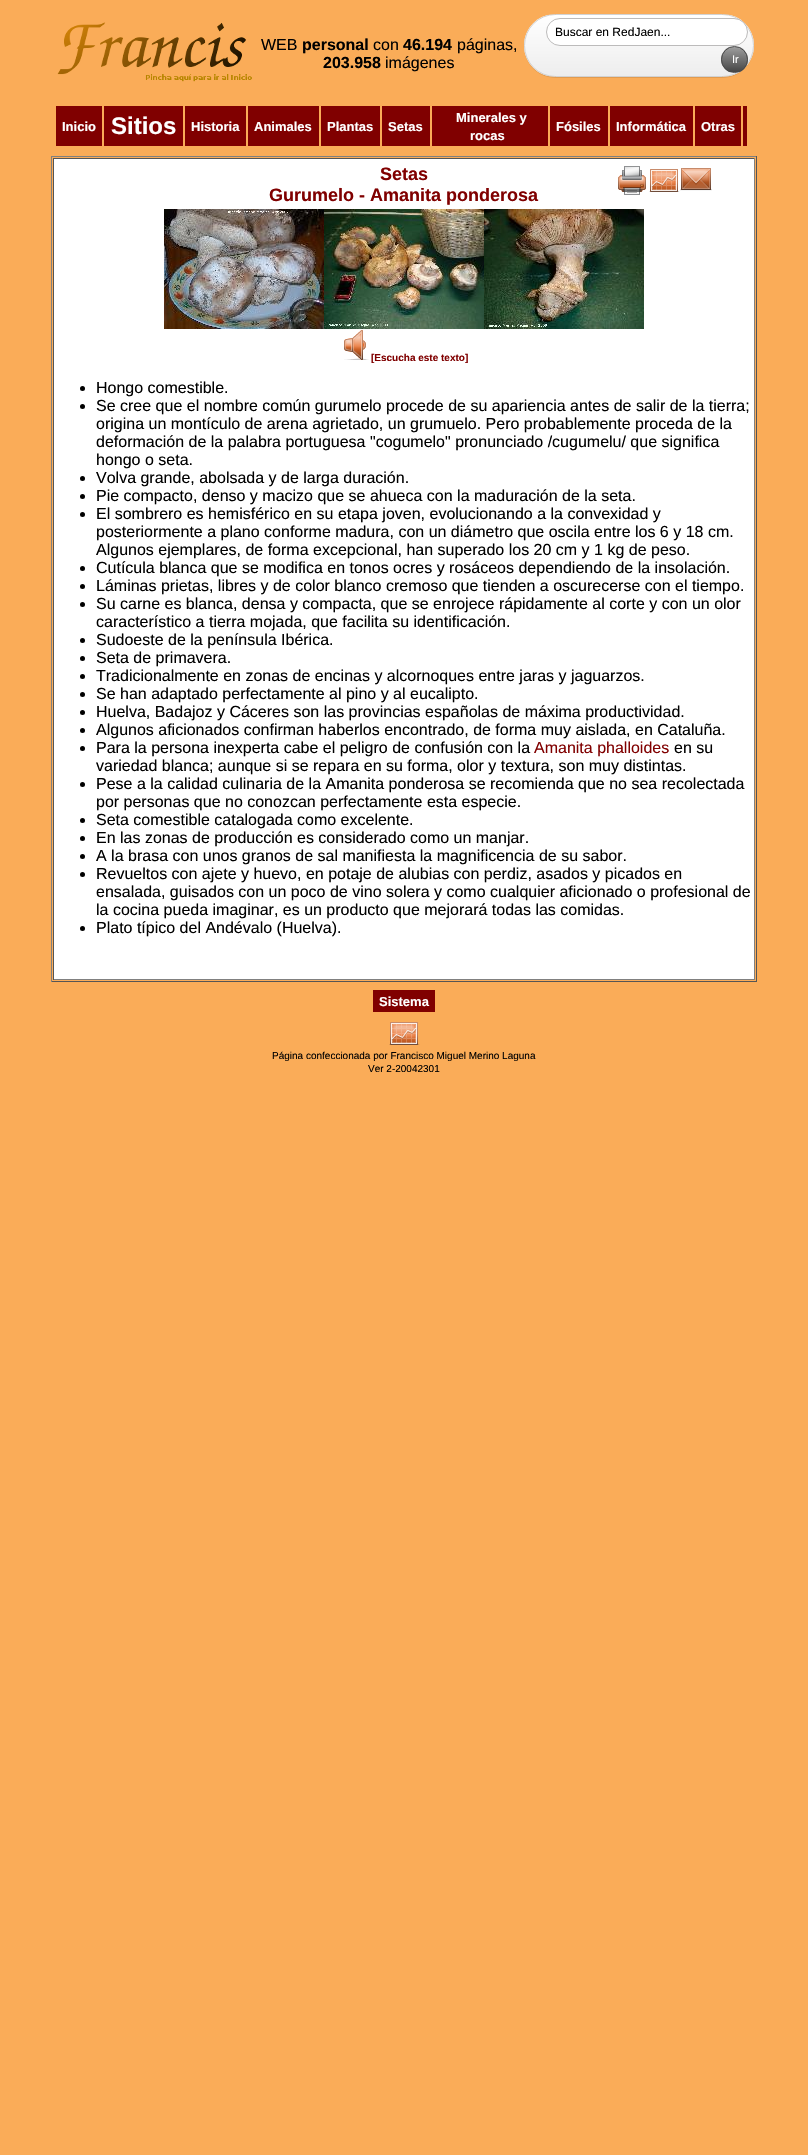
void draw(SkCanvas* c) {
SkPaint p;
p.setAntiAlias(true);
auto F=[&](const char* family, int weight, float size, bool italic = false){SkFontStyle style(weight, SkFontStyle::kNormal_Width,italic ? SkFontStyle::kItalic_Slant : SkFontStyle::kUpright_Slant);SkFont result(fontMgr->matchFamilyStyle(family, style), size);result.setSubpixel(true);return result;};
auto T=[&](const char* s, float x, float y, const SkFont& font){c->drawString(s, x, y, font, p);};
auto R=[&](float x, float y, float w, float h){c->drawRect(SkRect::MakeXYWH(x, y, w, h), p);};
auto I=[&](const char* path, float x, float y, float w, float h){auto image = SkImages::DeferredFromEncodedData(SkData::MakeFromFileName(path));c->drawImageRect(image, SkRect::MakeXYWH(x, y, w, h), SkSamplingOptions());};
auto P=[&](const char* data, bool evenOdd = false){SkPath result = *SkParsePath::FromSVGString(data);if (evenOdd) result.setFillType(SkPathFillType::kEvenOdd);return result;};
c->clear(0xfffaac58);
I("1.png",57,22,195,60);
auto f1 = F("Liberation Sans",400,16);
p.setColor(0xff000000);
T("WEB",261,50,f1);
auto f2 = F("Liberation Sans",700,16);
T("personal",302,50,f2);
T("con",373,50,f1);
T("46.194",403,50,f2);
T("páginas,",457,50,f1);
T("203.958",323,68,f2);
T("imágenes",385,68,f1);
p.setColor(0xffe19b4f);
c->drawPath(P("M524 46c0 18 14 32 32 32h166c18 0 32-14 32-32c0 17-14 31-32 31h-166c-18 0-32-14-32-31z"),p);
c->save();
c->clipPath(P("M555.5 14h167c17.5 0 31.5 14 31.5 31.5c0 17.5-14 31.5-31.5 31.5h-167c-17.5 0-31.5-14-31.5-31.5c0-17.5 14-31.5 31.5-31.5z"),true);
{
const SkColor colors[] = {0xffffffff,0xffededed};
const float stops[] = {0,1};
const SkPoint ends[] = {{525,15}, {525,76}};
p.setShader(SkGradientShader::MakeLinear(ends, colors, stops, 2, SkTileMode::kClamp));
p.setAlpha(255);
}
R(524,15,230,61);
c->restore();
p.setStroke(true);
p.setStrokeWidth(1);
p.setShader(nullptr);
p.setColor(0xffd2d2d2);
c->drawRoundRect(SkRect::MakeXYWH(524.5,14.5,229,62),31,31,p);
p.setStroke(false);
p.setColor(0xffffffff);
c->drawRoundRect(SkRect::MakeXYWH(546.5,18.5,201,27),13.5,13.5,p);
p.setStroke(true);
p.setColor(0xffbcbbbb);
c->drawRoundRect(SkRect::MakeXYWH(546.5,18.5,201,27),13.5,13.5,p);
auto f3 = F("Liberation Sans",400,12);
p.setStroke(false);
p.setColor(0xff000000);
T("Buscar en RedJaen...",555,36,f3);
c->save();
c->clipPath(P("M734.5 46c7.5 0 13.5 6 13.5 13.5c0 7.5-6 13.5-13.5 13.5c-7.5 0-13.5-6-13.5-13.5c0-7.5 6-13.5 13.5-13.5z"),true);
{
const SkColor colors[] = {0xff9e9e9e,0xff454545};
const float stops[] = {0,1};
const SkPoint ends[] = {{722,47}, {722,72}};
p.setShader(SkGradientShader::MakeLinear(ends, colors, stops, 2, SkTileMode::kClamp));
p.setAlpha(255);
}
R(721,47,27,25);
c->restore();
p.setStroke(true);
p.setShader(nullptr);
p.setColor(0xff494949);
c->drawCircle(734.5,59.5,13,p);
auto f4 = F("Liberation Sans",400,11);
p.setStroke(false);
p.setColor(0xffffffff);
T("Ir",732,63,f4);
p.setColor(0xff800000);
R(56,106,46,40);
auto f5 = F("Liberation Sans",700,13);
p.setColor(0xffffffff);
T("Inicio",62,131,f5);
p.setColor(0xff800000);
R(104,106,79,40);
auto f6 = F("Liberation Sans",700,24);
p.setColor(0xffffffff);
T("Sitios",111,134,f6);
p.setColor(0xff800000);
R(185,106,61,40);
p.setColor(0xffffffff);
T("Historia",191,131,f5);
p.setColor(0xff800000);
R(248,106,71,40);
p.setColor(0xffffffff);
T("Animales",254,131,f5);
p.setColor(0xff800000);
R(321,106,59,40);
p.setColor(0xffffffff);
T("Plantas",327,131,f5);
p.setColor(0xff800000);
R(382,106,48,40);
p.setColor(0xffffffff);
T("Setas",388,131,f5);
p.setColor(0xff800000);
R(432,106,116,40);
p.setColor(0xffffffff);
T("Minerales y",456,122,f5);
T("rocas",470,140,f5);
p.setColor(0xff800000);
R(550,106,58,40);
p.setColor(0xffffffff);
T("Fósiles",556,131,f5);
p.setColor(0xff800000);
R(610,106,83,40);
p.setColor(0xffffffff);
T("Informática",616,131,f5);
p.setColor(0xff800000);
R(695,106,46,40);
p.setColor(0xffffffff);
T("Otras",701,131,f5);
p.setColor(0xff800000);
R(743,106,4,40);
p.setColor(0xff808080);
R(51,156,706,1);
p.setColor(0xff555555);
R(756,156,1,826);
R(51,981,706,1);
p.setColor(0xff808080);
R(51,156,1,826);
p.setColor(0xffffffff);
R(54,159,700,820);
p.setColor(0xff555555);
R(53,158,702,1);
p.setColor(0xff808080);
R(754,158,1,822);
R(53,979,702,1);
p.setColor(0xff555555);
R(53,158,1,822);
auto f7 = F("Liberation Sans",700,18);
p.setColor(0xff800000);
T("Setas",380,180,f7);
T("Gurumelo - Amanita ponderosa",269,201,f7);
I("2.png",618,166,28,29);
I("3.png",649,169,31,23);
I("4.png",680,168,32,23);
I("5.png",164,209,160,120);
I("6.png",324,209,160,120);
I("7.png",484,209,160,120);
I("8.png",344,330,25,30);
auto f8 = F("Liberation Sans",700,10);
T("[Escucha este texto]",371,361,f8);
p.setColor(0xff000000);
c->drawCircle(82.5,388.5,2.5,p);
T("Hongo comestible.",96,393,f1);
c->drawCircle(82.5,406.5,2.5,p);
T("Se cree que el nombre común gurumelo procede de su apariencia antes de salir de la tierra;",96,411,f1);
T("origina un montículo de arena agrietado, un grumuelo. Pero probablemente proceda de la",96,429,f1);
T("deformación de la palabra portuguesa \"cogumelo\" pronunciado /cugumelu/ que significa",96,447,f1);
T("hongo o seta.",96,465,f1);
c->drawCircle(82.5,478.5,2.5,p);
T("Volva grande, abolsada y de larga duración.",96,483,f1);
c->drawCircle(82.5,496.5,2.5,p);
T("Pie compacto, denso y macizo que se ahueca con la maduración de la seta.",96,501,f1);
c->drawCircle(82.5,514.5,2.5,p);
T("El sombrero es hemisférico en su etapa joven, evolucionando a la convexidad y",96,519,f1);
T("posteriormente a plano conforme madura, con un diámetro que oscila entre los 6 y 18 cm.",96,537,f1);
T("Algunos ejemplares, de forma excepcional, han superado los 20 cm y 1 kg de peso.",96,555,f1);
c->drawCircle(82.5,568.5,2.5,p);
T("Cutícula blanca que se modifica en tonos ocres y rosáceos dependiendo de la insolación.",96,573,f1);
c->drawCircle(82.5,586.5,2.5,p);
T("Láminas prietas, libres y de color blanco cremoso que tienden a oscurecerse con el tiempo.",96,591,f1);
c->drawCircle(82.5,604.5,2.5,p);
T("Su carne es blanca, densa y compacta, que se enrojece rápidamente al corte y con un olor",96,609,f1);
T("característico a tierra mojada, que facilita su identificación.",96,627,f1);
c->drawCircle(82.5,640.5,2.5,p);
T("Sudoeste de la península Ibérica.",96,645,f1);
c->drawCircle(82.5,658.5,2.5,p);
T("Seta de primavera.",96,663,f1);
c->drawCircle(82.5,676.5,2.5,p);
T("Tradicionalmente en zonas de encinas y alcornoques entre jaras y jaguarzos.",96,681,f1);
c->drawCircle(82.5,694.5,2.5,p);
T("Se han adaptado perfectamente al pino y al eucalipto.",96,699,f1);
c->drawCircle(82.5,712.5,2.5,p);
T("Huelva, Badajoz y Cáceres son las provincias españolas de máxima productividad.",96,717,f1);
c->drawCircle(82.5,730.5,2.5,p);
T("Algunos aficionados confirman haberlos encontrado, de forma muy aislada, en Cataluña.",96,735,f1);
c->drawCircle(82.5,748.5,2.5,p);
T("Para la persona inexperta cabe el peligro de confusión con la",96,753,f1);
p.setColor(0xff800000);
T("Amanita phalloides",534,753,f1);
p.setColor(0xff000000);
T("en su",674,753,f1);
T("variedad blanca; aunque si se repara en su forma, olor y textura, son muy distintas.",96,771,f1);
c->drawCircle(82.5,784.5,2.5,p);
T("Pese a la calidad culinaria de la Amanita ponderosa se recomienda que no sea recolectada",96,789,f1);
T("por personas que no conozcan perfectamente esta especie.",96,807,f1);
c->drawCircle(82.5,820.5,2.5,p);
T("Seta comestible catalogada como excelente.",96,825,f1);
c->drawCircle(82.5,838.5,2.5,p);
T("En las zonas de producción es considerado como un manjar.",96,843,f1);
c->drawCircle(82.5,856.5,2.5,p);
T("A la brasa con unos granos de sal manifiesta la magnificencia de su sabor.",96,861,f1);
c->drawCircle(82.5,874.5,2.5,p);
T("Revueltos con ajete y huevo, en potaje de alubias con perdiz, asados y picados en",96,879,f1);
T("ensalada, guisados con un poco de vino solera y como cualquier aficionado o profesional de",96,897,f1);
T("la cocina pueda imaginar, es un producto que mejorará todas las comidas.",96,915,f1);
c->drawCircle(82.5,928.5,2.5,p);
T("Plato típico del Andévalo (Huelva).",96,933,f1);
p.setColor(0xff800000);
R(373,990,62,22);
p.setColor(0xffffffff);
T("Sistema",379,1006,f5);
I("9.png",389,1022,31,23);
auto f9 = F("Liberation Sans",400,10);
p.setColor(0xff000000);
T("Página confeccionada por Francisco Miguel Merino Laguna",272,1059,f9);
T("Ver 2-20042301",368,1072,f9);
}
